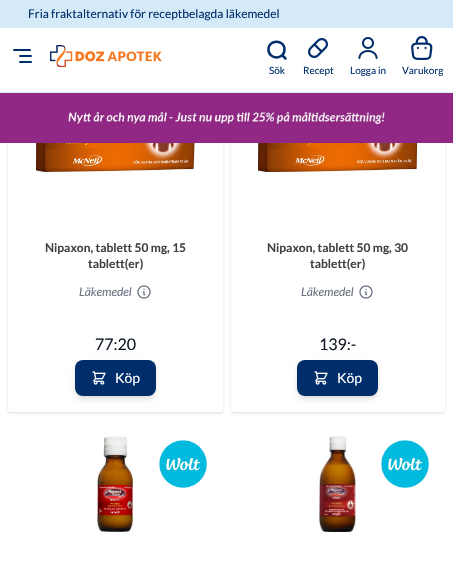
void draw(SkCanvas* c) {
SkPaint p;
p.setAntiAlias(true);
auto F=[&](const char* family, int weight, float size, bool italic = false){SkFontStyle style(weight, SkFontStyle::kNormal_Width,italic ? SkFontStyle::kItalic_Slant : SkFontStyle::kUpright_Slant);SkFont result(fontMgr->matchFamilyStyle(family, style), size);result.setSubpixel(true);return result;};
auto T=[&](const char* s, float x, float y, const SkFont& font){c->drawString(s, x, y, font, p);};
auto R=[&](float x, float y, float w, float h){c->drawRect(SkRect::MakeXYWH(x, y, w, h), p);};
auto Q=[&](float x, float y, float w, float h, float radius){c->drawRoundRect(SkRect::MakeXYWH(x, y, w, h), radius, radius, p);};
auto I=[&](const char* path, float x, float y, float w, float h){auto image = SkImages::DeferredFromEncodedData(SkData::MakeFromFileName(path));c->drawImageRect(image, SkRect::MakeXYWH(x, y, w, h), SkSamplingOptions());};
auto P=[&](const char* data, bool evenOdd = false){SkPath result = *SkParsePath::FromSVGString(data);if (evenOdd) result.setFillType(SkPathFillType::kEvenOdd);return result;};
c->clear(0xffffffff);
p.setColor(0x1a000000);
p.setMaskFilter(SkMaskFilter::MakeBlur(kNormal_SkBlurStyle, 1));
c->drawRoundRect(SkRect::MakeXYWH(9,62,213,350),1,1,p);
p.setMaskFilter(nullptr);
p.setMaskFilter(SkMaskFilter::MakeBlur(kNormal_SkBlurStyle, 1.5));
c->drawRoundRect(SkRect::MakeXYWH(8,61,215,352),2,2,p);
p.setMaskFilter(nullptr);
p.setColor(0xffffffff);
Q(8,60,215,352,2);
p.setColor(0x1a000000);
p.setMaskFilter(SkMaskFilter::MakeBlur(kNormal_SkBlurStyle, 1));
c->drawRoundRect(SkRect::MakeXYWH(232,62,212,350),1,1,p);
p.setMaskFilter(nullptr);
p.setMaskFilter(SkMaskFilter::MakeBlur(kNormal_SkBlurStyle, 1.5));
c->drawRoundRect(SkRect::MakeXYWH(231,61,214,352),2,2,p);
p.setMaskFilter(nullptr);
p.setColor(0xffffffff);
Q(231,60,214,352,2);
R(6,59,441,33);
p.setColor(0xffd4eaf8);
R(0,0,453,28);
auto f1 = F("Lato",400,12);
p.setColor(0xff002e6a);
T("Fria fraktalternativ för receptbelagda läkemedel",28,18,f1);
p.setColor(0xffd4eaf8);
R(0,92,453,1);
p.setColor(0xff002e6a);
Q(13,49,18,2,1);
Q(19,55,13,2,1);
Q(19,61,13,2,1);
I("1.png",50,45,112,22);
p.setStroke(true);
p.setStrokeWidth(2.5);
p.setStrokeCap(SkPaint::kRound_Cap);
p.setStrokeJoin(SkPaint::kRound_Join);
c->drawPath(P("M285.5 58.5l-2-2m1-7c0 10.5-16 10.5-16 0c0-10.5 16-10.5 16 0z"),p);
auto f2 = F("Lato",400,10);
p.setStroke(false);
T("Sök",269,74,f2);
I("2.png",308,38,20,20);
T("Recept",303,74,f2);
I("3.png",358,37,20,22);
T("Logga in",350,74,f2);
I("4.png",411,36,22,24);
T("Varukorg",402,74,f2);
p.setColor(0xff912885);
R(0,93,453,50);
I("5.png",68,111,317,15);
I("6.png",36,143,159,29);
auto f3 = F("Lato",700,12);
p.setColor(0xff404040);
T("Nipaxon, tablett 50 mg, 15",45,252,f3);
T("tablett(er)",88,268,f3);
auto f4 = F("Lato",400,12,true);
p.setColor(0xff6b7280);
T("Läkemedel",79,296,f4);
I("7.png",137,285,14,14);
auto f5 = F("Lato",400,16);
p.setColor(0xff111827);
T("77:20",95,350,f5);
p.setColor(0x1a000000);
p.setMaskFilter(SkMaskFilter::MakeBlur(kNormal_SkBlurStyle, 2));
c->drawRoundRect(SkRect::MakeXYWH(77,364,77,32),6,6,p);
p.setMaskFilter(nullptr);
p.setMaskFilter(SkMaskFilter::MakeBlur(kNormal_SkBlurStyle, 3));
c->drawRoundRect(SkRect::MakeXYWH(76,365,79,34),7,7,p);
p.setMaskFilter(nullptr);
p.setColor(0xff002e6a);
Q(75,360,81,36,8);
I("8.png",92,371,14,14);
auto f6 = F("Lato",400,14);
p.setColor(0xffffffff);
T("Köp",115,383,f6);
I("9.png",258,143,160,29);
p.setColor(0xff404040);
T("Nipaxon, tablett 50 mg, 30",267,252,f3);
T("tablett(er)",310,268,f3);
p.setColor(0xff6b7280);
T("Läkemedel",301,296,f4);
I("7.png",359,285,14,14);
p.setColor(0xff111827);
T("139:-",319,350,f5);
p.setColor(0x1a000000);
p.setMaskFilter(SkMaskFilter::MakeBlur(kNormal_SkBlurStyle, 2));
c->drawRoundRect(SkRect::MakeXYWH(299,364,77,32),6,6,p);
p.setMaskFilter(nullptr);
p.setMaskFilter(SkMaskFilter::MakeBlur(kNormal_SkBlurStyle, 3));
c->drawRoundRect(SkRect::MakeXYWH(298,365,79,34),7,7,p);
p.setMaskFilter(nullptr);
p.setColor(0xff002e6a);
Q(297,360,81,36,8);
I("8.png",314,371,14,14);
p.setColor(0xffffffff);
T("Köp",337,383,f6);
I("10.png",97,436,36,96);
I("11.png",159,440,48,48);
I("12.png",319,436,37,96);
I("13.png",381,440,48,48);
}
